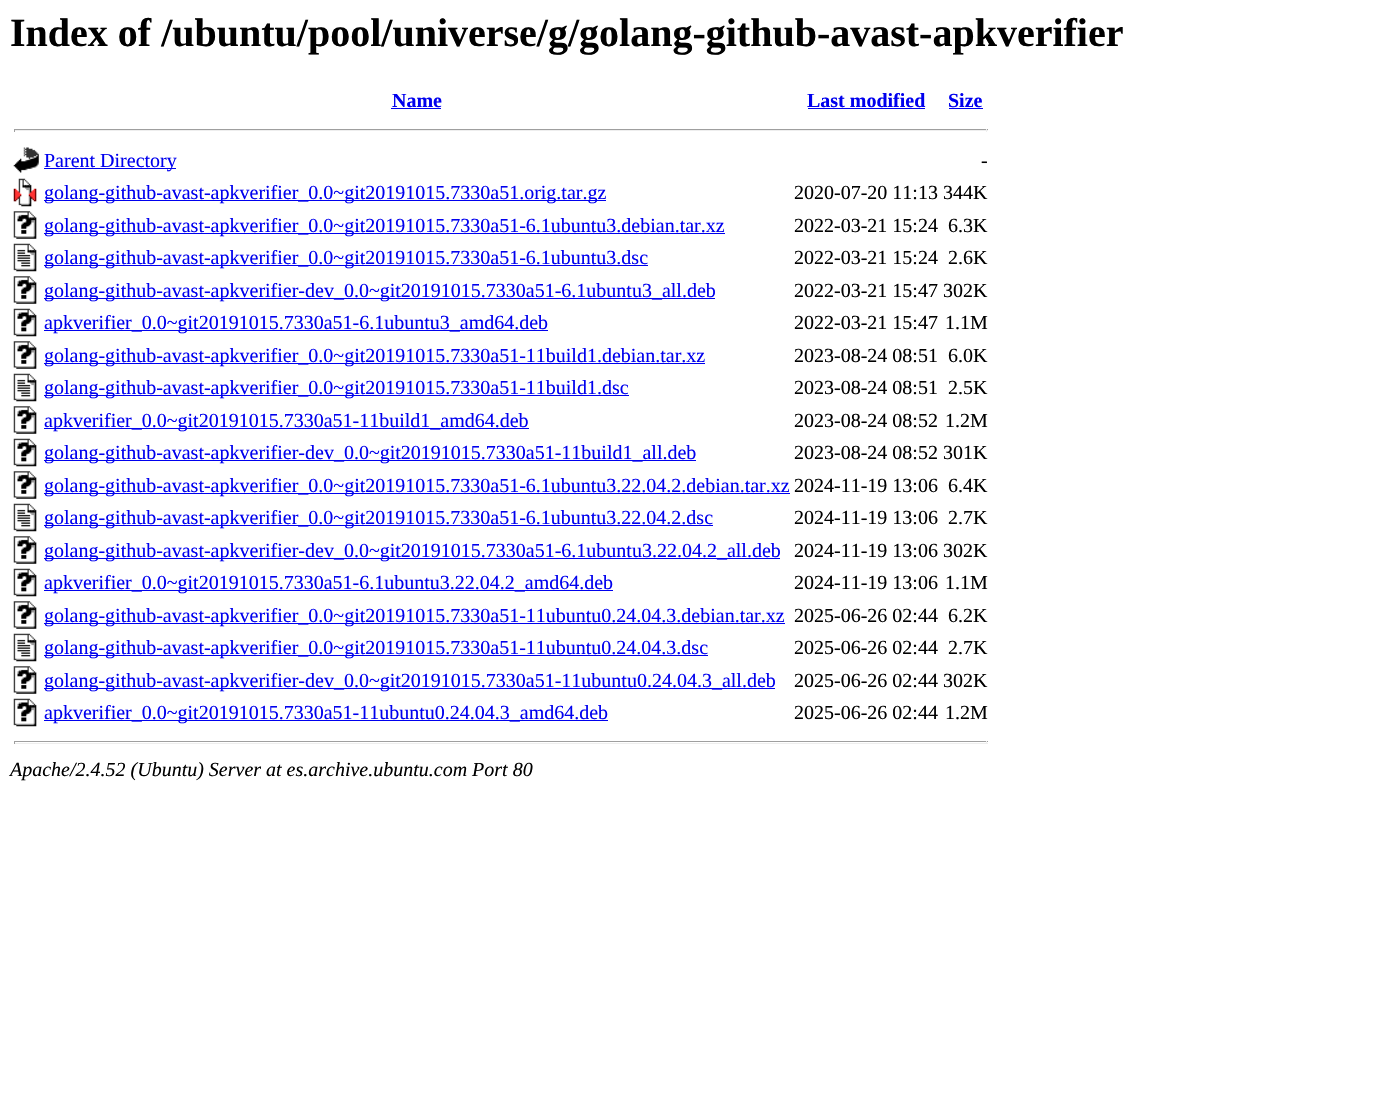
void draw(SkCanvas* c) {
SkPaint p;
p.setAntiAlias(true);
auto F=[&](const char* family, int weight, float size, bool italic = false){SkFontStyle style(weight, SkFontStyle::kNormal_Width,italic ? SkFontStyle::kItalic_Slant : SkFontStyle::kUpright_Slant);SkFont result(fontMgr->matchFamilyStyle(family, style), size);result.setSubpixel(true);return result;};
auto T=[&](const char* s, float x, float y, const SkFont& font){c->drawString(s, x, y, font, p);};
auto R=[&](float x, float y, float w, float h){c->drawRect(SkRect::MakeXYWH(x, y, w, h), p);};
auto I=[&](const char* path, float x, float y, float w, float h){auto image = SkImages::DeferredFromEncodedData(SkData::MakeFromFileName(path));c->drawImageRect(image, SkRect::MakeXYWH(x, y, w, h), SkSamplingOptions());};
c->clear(0xffffffff);
auto f1 = F("Liberation Serif",700,40);
p.setColor(0xff000000);
T("Index of /ubuntu/pool/universe/g/golang-github-avast-apkverifier",10,46,f1);
auto f2 = F("Liberation Serif",700,20);
p.setColor(0xff0000ee);
T("Name",392,107,f2);
R(391,108,50,1);
T("Last modified",807,107,f2);
R(808,108,117,1);
T("Size",948,107,f2);
R(949,108,34,1);
p.setColor(0xff9f9f9f);
R(14,129,974,1);
p.setColor(0xffeeeeee);
R(986,129,1,3);
R(14,130,974,1);
p.setColor(0xff9f9f9f);
R(14,129,1,3);
I("1.png",13,147,26,26);
p.setColor(0xff0000ee);
R(44,168,132,1);
auto f3 = F("Liberation Serif",400,20);
T("Parent Directory",44,167,f3);
p.setColor(0xff000000);
T("-",981,167,f3);
I("2.png",13,178,24,29);
p.setColor(0xff0000ee);
R(44,200,562,1);
T("golang-github-avast-apkverifier_0.0~git20191015.7330a51.orig.tar.gz",44,199,f3);
p.setColor(0xff000000);
T("2020-07-20 11:13 344K",794,199,f3);
I("3.png",13,211,24,28);
p.setColor(0xff0000ee);
R(44,233,681,1);
T("golang-github-avast-apkverifier_0.0~git20191015.7330a51-6.1ubuntu3.debian.tar.xz",44,232,f3);
p.setColor(0xff000000);
T("2022-03-21 15:24",794,232,f3);
T("6.3K",948,232,f3);
I("4.png",13,243,24,29);
p.setColor(0xff0000ee);
R(44,265,604,1);
T("golang-github-avast-apkverifier_0.0~git20191015.7330a51-6.1ubuntu3.dsc",44,264,f3);
p.setColor(0xff000000);
T("2022-03-21 15:24",794,264,f3);
T("2.6K",948,264,f3);
I("5.png",13,276,24,28);
p.setColor(0xff0000ee);
R(44,298,671,1);
T("golang-github-avast-apkverifier-dev_0.0~git20191015.7330a51-6.1ubuntu3_all.deb",44,297,f3);
p.setColor(0xff000000);
T("2022-03-21 15:47 302K",794,297,f3);
I("6.png",13,308,24,29);
p.setColor(0xff0000ee);
R(44,330,504,1);
T("apkverifier_0.0~git20191015.7330a51-6.1ubuntu3_amd64.deb",44,329,f3);
p.setColor(0xff000000);
T("2022-03-21 15:47",794,329,f3);
T("1.1M",945,329,f3);
I("3.png",13,341,24,28);
p.setColor(0xff0000ee);
R(44,363,661,1);
T("golang-github-avast-apkverifier_0.0~git20191015.7330a51-11build1.debian.tar.xz",44,362,f3);
p.setColor(0xff000000);
T("2023-08-24 08:51",794,362,f3);
T("6.0K",948,362,f3);
I("4.png",13,373,24,29);
p.setColor(0xff0000ee);
R(44,395,585,1);
T("golang-github-avast-apkverifier_0.0~git20191015.7330a51-11build1.dsc",44,394,f3);
p.setColor(0xff000000);
T("2023-08-24 08:51",794,394,f3);
T("2.5K",948,394,f3);
I("3.png",13,406,24,28);
p.setColor(0xff0000ee);
R(44,428,485,1);
T("apkverifier_0.0~git20191015.7330a51-11build1_amd64.deb",44,427,f3);
p.setColor(0xff000000);
T("2023-08-24 08:52",794,427,f3);
T("1.2M",945,427,f3);
I("6.png",13,438,24,29);
p.setColor(0xff0000ee);
R(44,460,652,1);
T("golang-github-avast-apkverifier-dev_0.0~git20191015.7330a51-11build1_all.deb",44,459,f3);
p.setColor(0xff000000);
T("2023-08-24 08:52 301K",794,459,f3);
I("3.png",13,471,24,28);
p.setColor(0xff0000ee);
R(44,493,746,1);
T("golang-github-avast-apkverifier_0.0~git20191015.7330a51-6.1ubuntu3.22.04.2.debian.tar.xz",44,492,f3);
p.setColor(0xff000000);
T("2024-11-19 13:06",794,492,f3);
T("6.4K",948,492,f3);
I("4.png",13,503,24,29);
p.setColor(0xff0000ee);
R(44,525,669,1);
T("golang-github-avast-apkverifier_0.0~git20191015.7330a51-6.1ubuntu3.22.04.2.dsc",44,524,f3);
p.setColor(0xff000000);
T("2024-11-19 13:06",794,524,f3);
T("2.7K",948,524,f3);
I("3.png",13,536,24,28);
p.setColor(0xff0000ee);
R(44,558,736,1);
T("golang-github-avast-apkverifier-dev_0.0~git20191015.7330a51-6.1ubuntu3.22.04.2_all.deb",44,557,f3);
p.setColor(0xff000000);
T("2024-11-19 13:06 302K",794,557,f3);
I("6.png",13,568,24,29);
p.setColor(0xff0000ee);
R(44,590,569,1);
T("apkverifier_0.0~git20191015.7330a51-6.1ubuntu3.22.04.2_amd64.deb",44,589,f3);
p.setColor(0xff000000);
T("2024-11-19 13:06",794,589,f3);
T("1.1M",945,589,f3);
I("3.png",13,601,24,28);
p.setColor(0xff0000ee);
R(44,623,741,1);
T("golang-github-avast-apkverifier_0.0~git20191015.7330a51-11ubuntu0.24.04.3.debian.tar.xz",44,622,f3);
p.setColor(0xff000000);
T("2025-06-26 02:44",794,622,f3);
T("6.2K",948,622,f3);
I("4.png",13,633,24,29);
p.setColor(0xff0000ee);
R(44,655,664,1);
T("golang-github-avast-apkverifier_0.0~git20191015.7330a51-11ubuntu0.24.04.3.dsc",44,654,f3);
p.setColor(0xff000000);
T("2025-06-26 02:44",794,654,f3);
T("2.7K",948,654,f3);
I("3.png",13,666,24,28);
p.setColor(0xff0000ee);
R(44,688,731,1);
T("golang-github-avast-apkverifier-dev_0.0~git20191015.7330a51-11ubuntu0.24.04.3_all.deb",44,687,f3);
p.setColor(0xff000000);
T("2025-06-26 02:44 302K",794,687,f3);
I("6.png",13,698,24,29);
p.setColor(0xff0000ee);
R(44,720,564,1);
T("apkverifier_0.0~git20191015.7330a51-11ubuntu0.24.04.3_amd64.deb",44,719,f3);
p.setColor(0xff000000);
T("2025-06-26 02:44",794,719,f3);
T("1.2M",945,719,f3);
p.setColor(0xff9f9f9f);
R(14,741,974,1);
p.setColor(0xffeeeeee);
R(986,741,1,3);
R(14,743,974,1);
p.setColor(0xff9f9f9f);
R(14,741,1,3);
auto f4 = F("Liberation Serif",400,20,true);
p.setColor(0xff000000);
T("Apache/2.4.52 (Ubuntu) Server at es.archive.ubuntu.com Port 80",10,776,f4);
}
